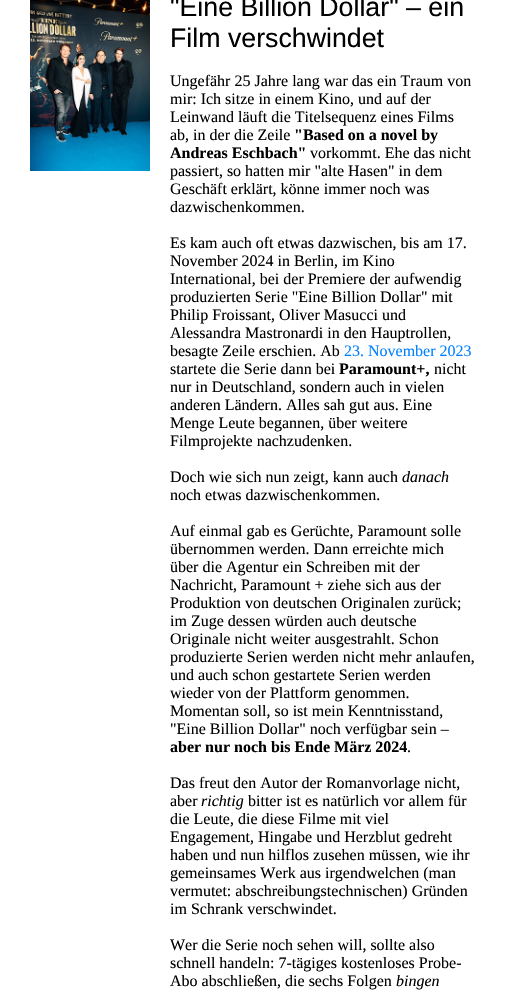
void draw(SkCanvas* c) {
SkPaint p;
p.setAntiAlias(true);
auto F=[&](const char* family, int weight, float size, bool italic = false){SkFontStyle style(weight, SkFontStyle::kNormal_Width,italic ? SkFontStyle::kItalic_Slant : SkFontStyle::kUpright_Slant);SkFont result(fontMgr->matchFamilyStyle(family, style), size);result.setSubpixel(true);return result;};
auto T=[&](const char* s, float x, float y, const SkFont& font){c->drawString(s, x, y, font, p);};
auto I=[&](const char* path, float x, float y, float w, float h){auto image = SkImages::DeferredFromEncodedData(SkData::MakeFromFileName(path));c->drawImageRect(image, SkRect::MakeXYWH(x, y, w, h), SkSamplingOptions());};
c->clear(0xffffffff);
I("1.png",30,0,120,171);
auto f1 = F("Liberation Sans",400,26.75);
p.setColor(0xff000000);
T("\"Eine Billion Dollar\" – ein",170,16,f1);
T("Film verschwindet",170,47,f1);
auto f2 = F("Liberation Serif",400,16);
T("Ungefähr 25 Jahre lang war das ein Traum von",170,86,f2);
T("mir: Ich sitze in einem Kino, und auf der",170,104,f2);
T("Leinwand läuft die Titelsequenz eines Films",170,122,f2);
T("ab, in der die Zeile",170,140,f2);
auto f3 = F("Liberation Serif",700,16);
T("\"Based on a novel by",294,140,f3);
T("Andreas Eschbach\"",170,158,f3);
T("vorkommt. Ehe das nicht",310,158,f2);
T("passiert, so hatten mir \"alte Hasen\" in dem",170,176,f2);
T("Geschäft erklärt, könne immer noch was",170,194,f2);
T("dazwischenkommen.",170,212,f2);
T("Es kam auch oft etwas dazwischen, bis am 17.",170,248,f2);
T("November 2024 in Berlin, im Kino",170,266,f2);
T("International, bei der Premiere der aufwendig",170,284,f2);
T("produzierten Serie \"Eine Billion Dollar\" mit",170,302,f2);
T("Philip Froissant, Oliver Masucci und",170,320,f2);
T("Alessandra Mastronardi in den Hauptrollen,",170,338,f2);
T("besagte Zeile erschien. Ab",170,356,f2);
p.setColor(0xff0080ff);
T("23. November 2023",344,356,f2);
p.setColor(0xff000000);
T("startete die Serie dann bei",170,374,f2);
T("Paramount+,",339,374,f3);
T("nicht",434,374,f2);
T("nur in Deutschland, sondern auch in vielen",170,392,f2);
T("anderen Ländern. Alles sah gut aus. Eine",170,410,f2);
T("Menge Leute begannen, über weitere",170,428,f2);
T("Filmprojekte nachzudenken.",170,446,f2);
T("Doch wie sich nun zeigt, kann auch",170,482,f2);
auto f4 = F("Liberation Serif",400,16,true);
T("danach",402,482,f4);
T("noch etwas dazwischenkommen.",170,500,f2);
T("Auf einmal gab es Gerüchte, Paramount solle",170,536,f2);
T("übernommen werden. Dann erreichte mich",170,554,f2);
T("über die Agentur ein Schreiben mit der",170,572,f2);
T("Nachricht, Paramount + ziehe sich aus der",170,590,f2);
T("Produktion von deutschen Originalen zurück;",170,608,f2);
T("im Zuge dessen würden auch deutsche",170,626,f2);
T("Originale nicht weiter ausgestrahlt. Schon",170,644,f2);
T("produzierte Serien werden nicht mehr anlaufen,",170,662,f2);
T("und auch schon gestartete Serien werden",170,680,f2);
T("wieder von der Plattform genommen.",170,698,f2);
T("Momentan soll, so ist mein Kenntnisstand,",170,716,f2);
T("\"Eine Billion Dollar\" noch verfügbar sein –",170,734,f2);
T("aber nur noch bis Ende März 2024",170,752,f3);
T(".",407,752,f2);
T("Das freut den Autor der Romanvorlage nicht,",170,788,f2);
T("aber",170,806,f2);
T("richtig",201,806,f4);
T("bitter ist es natürlich vor allem für",248,806,f2);
T("die Leute, die diese Filme mit viel",170,824,f2);
T("Engagement, Hingabe und Herzblut gedreht",170,842,f2);
T("haben und nun hilflos zusehen müssen, wie ihr",170,860,f2);
T("gemeinsames Werk aus irgendwelchen (man",170,878,f2);
T("vermutet: abschreibungstechnischen) Gründen",170,896,f2);
T("im Schrank verschwindet.",170,914,f2);
T("Wer die Serie noch sehen will, sollte also",170,950,f2);
T("schnell handeln: 7-tägiges kostenloses Probe-",170,968,f2);
T("Abo abschließen, die sechs Folgen",170,986,f2);
T("bingen",396,986,f4);
}
